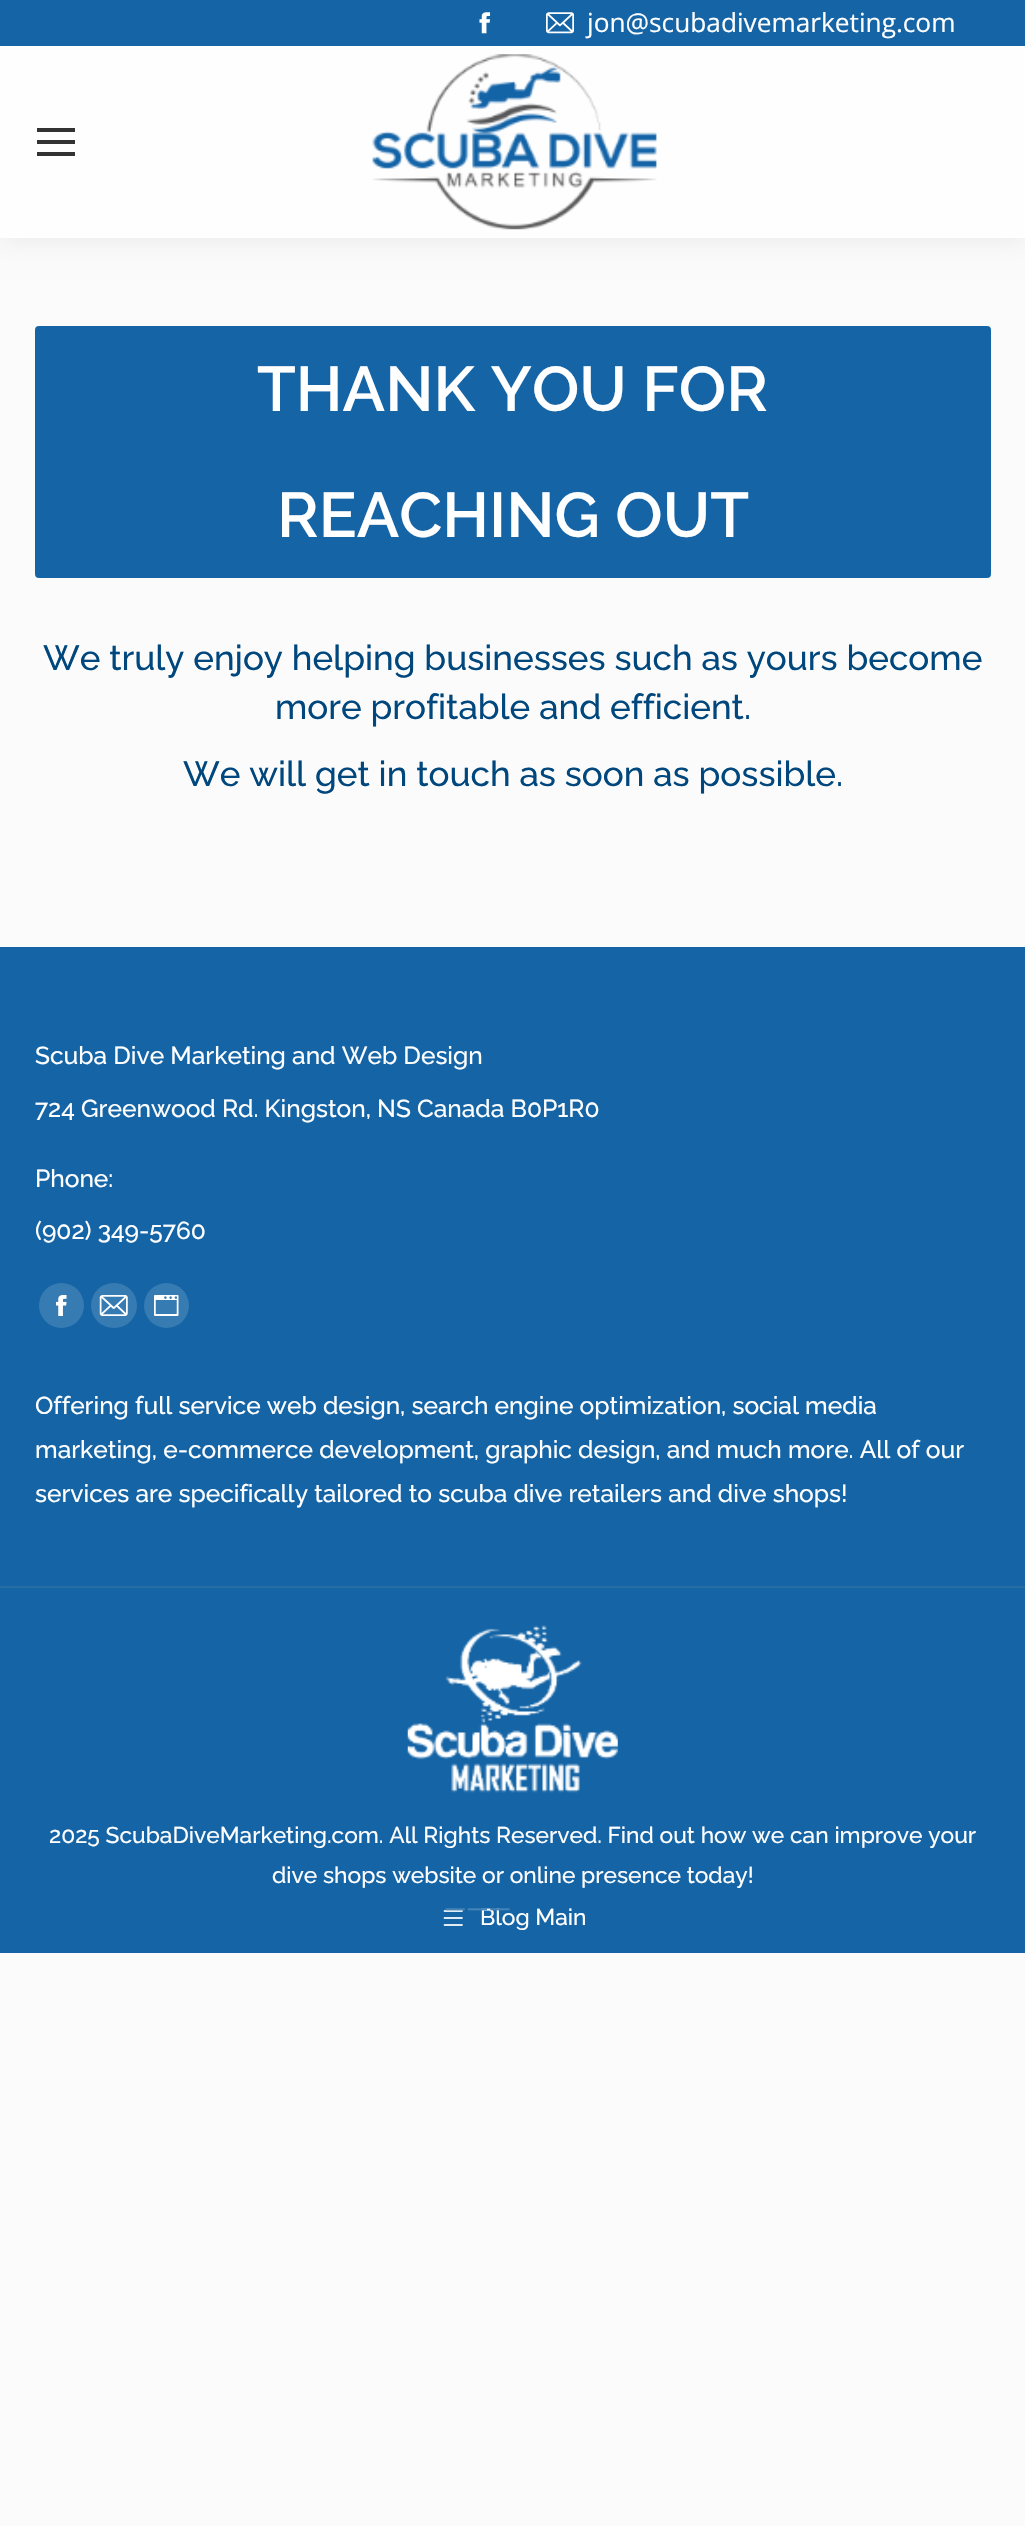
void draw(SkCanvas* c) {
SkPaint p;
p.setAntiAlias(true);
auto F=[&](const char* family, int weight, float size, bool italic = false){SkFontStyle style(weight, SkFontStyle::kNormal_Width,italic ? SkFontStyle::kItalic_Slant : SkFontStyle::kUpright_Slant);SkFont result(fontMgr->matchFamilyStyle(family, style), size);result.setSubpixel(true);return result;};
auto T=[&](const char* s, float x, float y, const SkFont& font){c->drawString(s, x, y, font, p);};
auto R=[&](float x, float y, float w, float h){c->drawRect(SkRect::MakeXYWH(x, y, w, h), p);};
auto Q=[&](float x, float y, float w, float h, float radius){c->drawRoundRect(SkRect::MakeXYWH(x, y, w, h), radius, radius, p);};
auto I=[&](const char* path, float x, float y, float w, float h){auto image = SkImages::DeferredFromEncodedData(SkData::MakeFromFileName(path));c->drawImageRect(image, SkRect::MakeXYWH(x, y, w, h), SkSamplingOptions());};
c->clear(0xfffbfbfb);
p.setColor(0x12000000);
p.setMaskFilter(SkMaskFilter::MakeBlur(kNormal_SkBlurStyle, 13));
c->drawRect(SkRect::MakeXYWH(-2,-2,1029,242),p);
p.setMaskFilter(nullptr);
p.setColor(0xfffefefe);
R(0,46,1025,192);
p.setColor(0xff1464a6);
R(0,0,1025,46);
I("1.png",479,12,12,22);
I("2.png",546,12,28,22);
auto f1 = F("Open Sans",400,26.25);
p.setColor(0xffffffff);
T("jon@scubadivemarketing.com",587,32,f1);
p.setColor(0xff333333);
R(37,128,38,4);
R(37,140,38,4);
R(37,152,38,4);
I("3.png",372,54,285,176);
p.setColor(0xff1464a6);
Q(35,326,956,252,4);
auto f2 = F("Raleway",600,63);
p.setColor(0xffffffff);
T("THANK YOU FOR",257,411,f2);
T("REACHING OUT",277,537,f2);
auto f3 = F("Raleway",500,35);
p.setColor(0xff00477d);
T("We truly enjoy helping businesses such as yours become",43,670,f3);
T("more profitable and efficient.",275,719,f3);
T("We will get in touch as soon as possible.",183,786,f3);
p.setColor(0xff1464a6);
R(0,947,1025,1006);
auto f4 = F("Raleway",500,24.5);
p.setColor(0xffffffff);
T("Scuba Dive Marketing and Web Design",35,1064,f4);
T("724 Greenwood Rd. Kingston, NS Canada B0P1R0",35,1117,f4);
T("Phone:",35,1187,f4);
T("(902) 349-5760",35,1239,f4);
p.setColor(0xff377bb3);
c->drawCircle(61.5,1305.5,22.5,p);
I("4.png",55,1295,12,21);
Q(91,1283,46,45,22.5);
I("5.png",99,1295,29,21);
c->drawCircle(166.5,1305.5,22.5,p);
I("6.png",154,1295,25,21);
p.setColor(0xffffffff);
T("Offering full service web design, search engine optimization, social media",35,1414,f4);
T("marketing, e-commerce development, graphic design, and much more. All of our",35,1458,f4);
T("services are specifically tailored to scuba dive retailers and dive shops!",35,1502,f4);
p.setColor(0xff286ca4);
R(0,1586,1025,2);
I("7.png",407,1625,211,168);
auto f5 = F("Raleway",500,22.75);
p.setColor(0xffffffff);
T("2025 ScubaDiveMarketing.com. All Rights Reserved. Find out how we can improve your",49,1843,f5);
T("dive shops website or online presence today!",272,1883,f5);
T("Blog Main",480,1925,f5);
I("8.png",443,1910,20,16);
p.setColor(0xff4383b8);
T("———",444,1916,f4);
}
